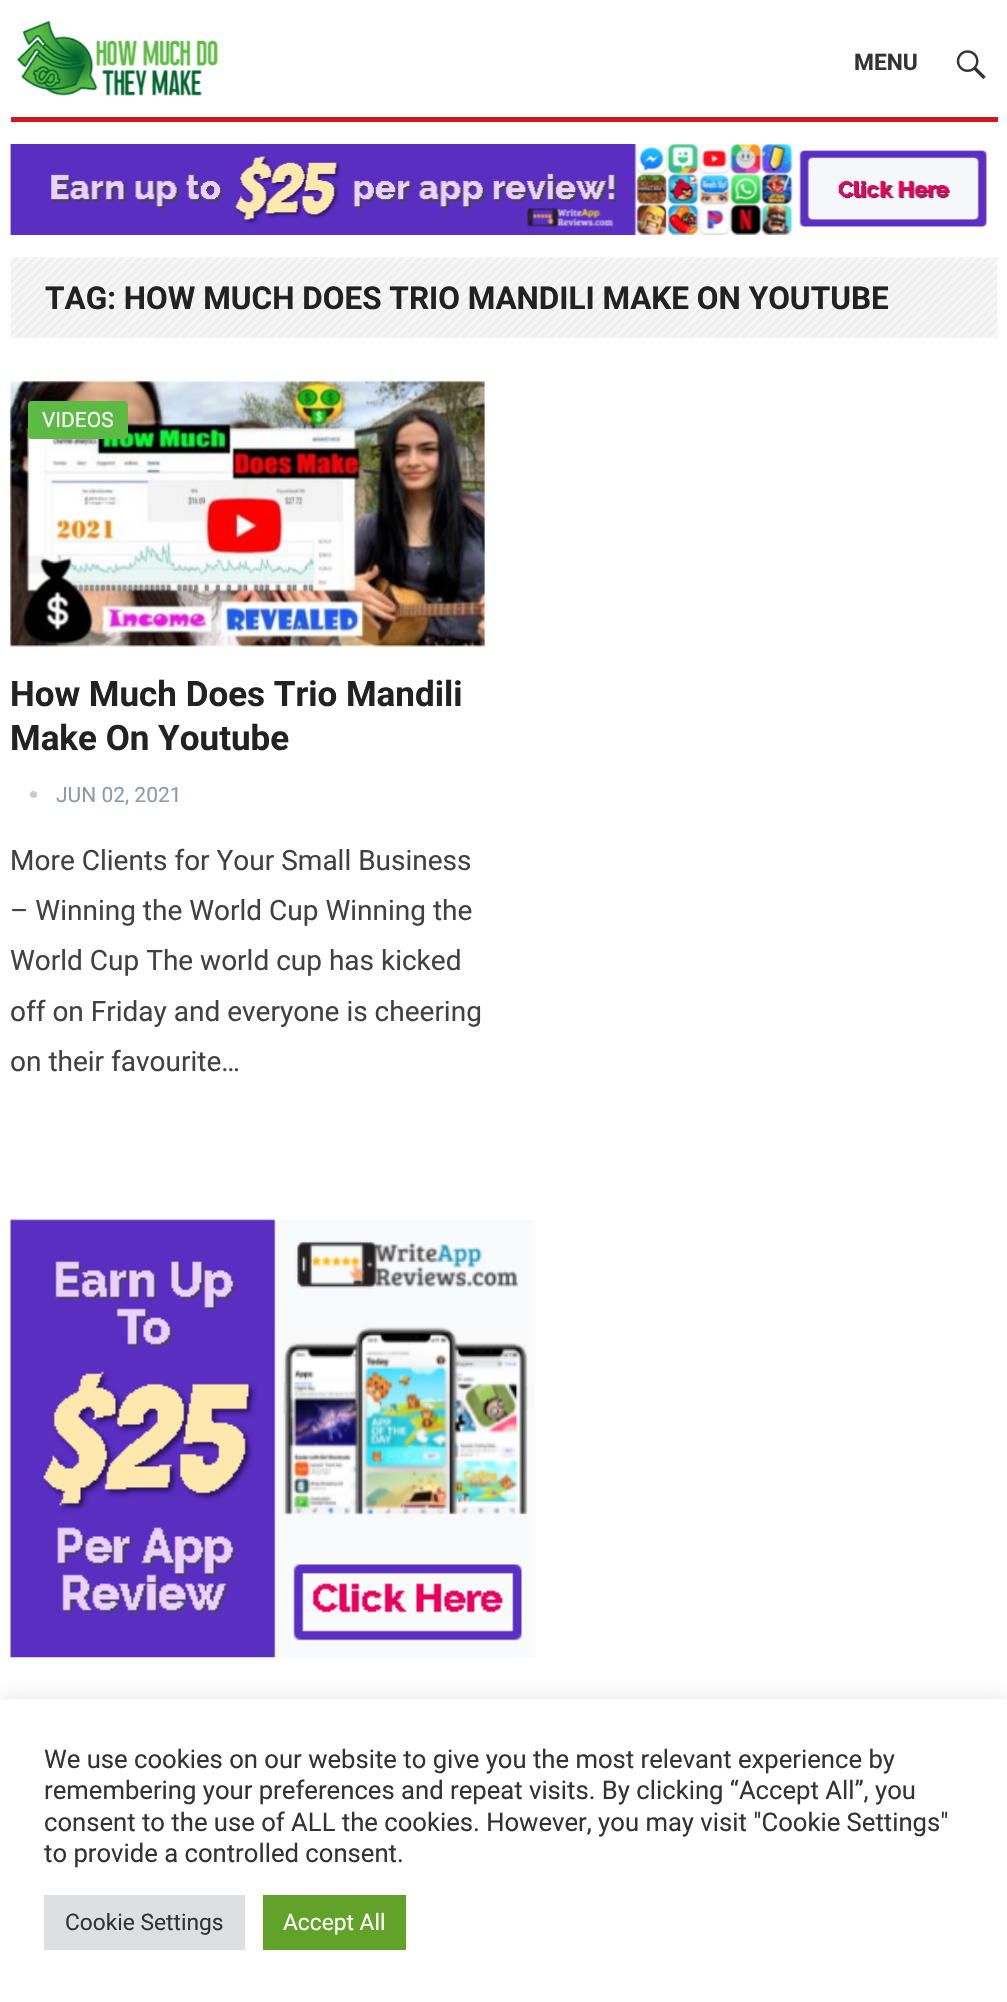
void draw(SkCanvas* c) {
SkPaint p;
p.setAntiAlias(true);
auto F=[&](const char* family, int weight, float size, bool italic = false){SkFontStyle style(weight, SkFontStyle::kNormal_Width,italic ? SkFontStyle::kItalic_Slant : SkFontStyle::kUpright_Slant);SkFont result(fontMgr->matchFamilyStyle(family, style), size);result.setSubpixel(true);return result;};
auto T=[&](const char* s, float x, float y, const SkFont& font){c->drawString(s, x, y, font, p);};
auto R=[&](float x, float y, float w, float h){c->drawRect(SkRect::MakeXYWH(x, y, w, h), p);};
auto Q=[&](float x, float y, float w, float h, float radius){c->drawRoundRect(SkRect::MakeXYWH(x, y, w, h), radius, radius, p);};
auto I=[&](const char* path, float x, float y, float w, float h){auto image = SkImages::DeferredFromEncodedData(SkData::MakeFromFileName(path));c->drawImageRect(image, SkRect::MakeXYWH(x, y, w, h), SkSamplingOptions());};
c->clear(0xffffffff);
p.setColor(0xffce181e);
R(11,117,987,5);
I("1.png",17,20,201,76);
I("2.png",10,144,977,91);
auto f1 = F("Roboto",700,22.75);
p.setColor(0xff333333);
T("MENU",854,70,f1);
I("3.png",956,50,30,30);
I("4.png",10,257,988,81);
auto f2 = F("Roboto",700,31.5);
p.setColor(0xff222222);
T("TAG: HOW MUCH DOES TRIO MANDILI MAKE ON YOUTUBE",45,309,f2);
I("5.png",9,380,476,267);
p.setColor(0xff5dba45);
Q(28,401,100,38,4);
auto f3 = F("Roboto",400,21);
p.setColor(0xffffffff);
T("VIDEOS",42,427,f3);
auto f4 = F("Roboto",700,35);
p.setColor(0xff222222);
T("How Much Does Trio Mandili",10,706,f4);
T("Make On Youtube",10,750,f4);
p.setColor(0xffcccccc);
c->drawCircle(33.5,794.5,3.5,p);
p.setColor(0xff8e99a9);
T("JUN 02, 2021",56,802,f3);
auto f5 = F("Roboto",400,28);
p.setColor(0xff414141);
T("More Clients for Your Small Business",10,870,f5);
T("– Winning the World Cup Winning the",10,920,f5);
T("World Cup The world cup has kicked",10,970,f5);
T("off on Friday and everyone is cheering",10,1021,f5);
T("on their favourite…",10,1071,f5);
I("6.png",10,1219,525,439);
p.setColor(0x4dacabab);
p.setMaskFilter(SkMaskFilter::MakeBlur(kNormal_SkBlurStyle, 9));
c->drawRect(SkRect::MakeXYWH(0,1698,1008,302),p);
p.setMaskFilter(nullptr);
p.setColor(0xffffffff);
R(0,1699,1007,303);
auto f6 = F("Roboto",400,25.65);
p.setColor(0xff333333);
T("We use cookies on our website to give you the most relevant experience by",44,1768,f6);
T("remembering your preferences and repeat visits. By clicking “Accept All”, you",44,1799,f6);
T("consent to the use of ALL the cookies. However, you may visit \"Cookie Settings\"",44,1831,f6);
T("to provide a controlled consent.",44,1862,f6);
p.setColor(0xffdedfe0);
R(44,1895,201,55);
auto f7 = F("Roboto",400,22.75);
p.setColor(0xff333333);
T("Cookie Settings",65,1930,f7);
p.setColor(0xff61a229);
R(263,1895,143,55);
p.setColor(0xffffffff);
T("Accept All",283,1930,f7);
}
